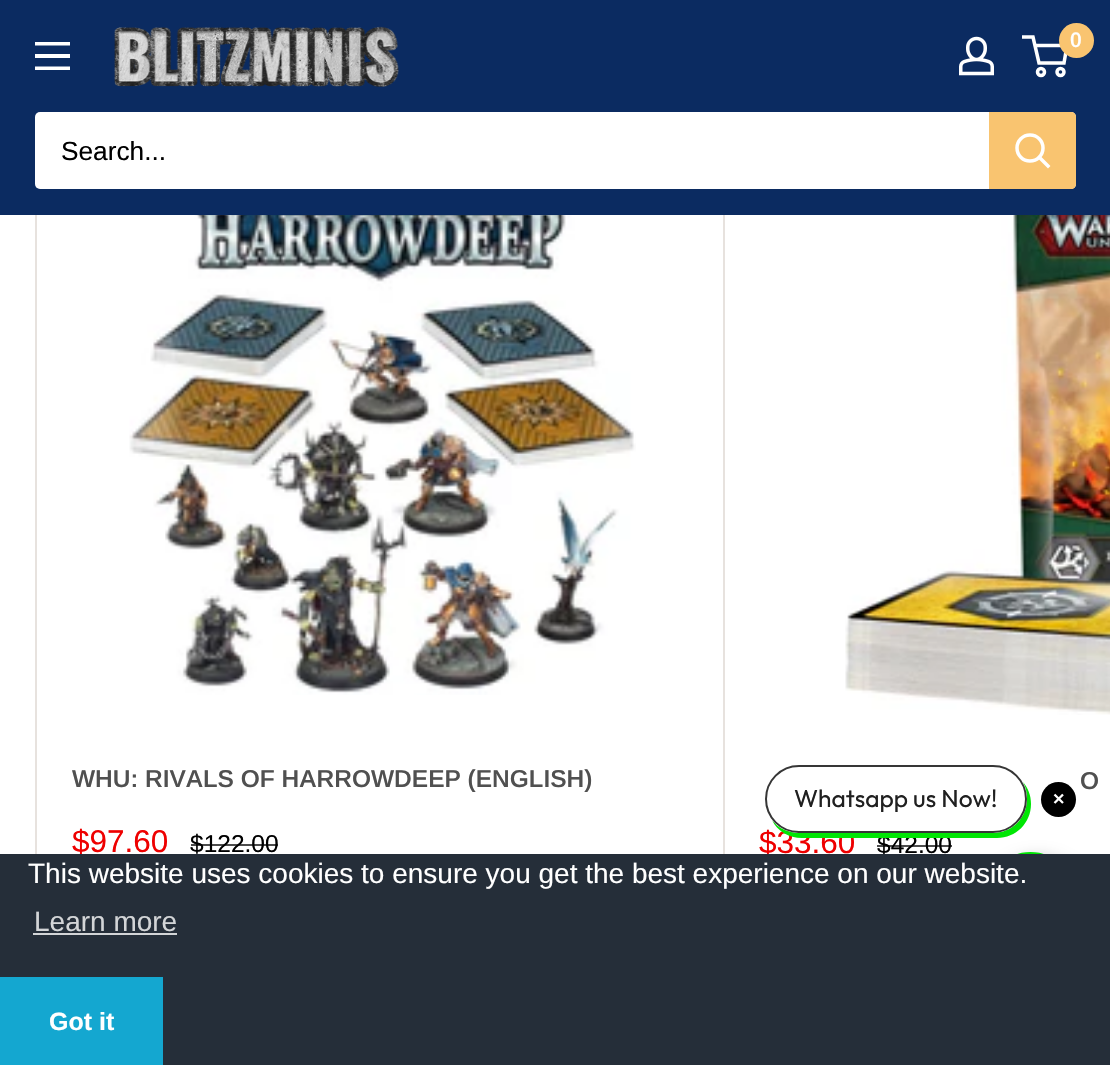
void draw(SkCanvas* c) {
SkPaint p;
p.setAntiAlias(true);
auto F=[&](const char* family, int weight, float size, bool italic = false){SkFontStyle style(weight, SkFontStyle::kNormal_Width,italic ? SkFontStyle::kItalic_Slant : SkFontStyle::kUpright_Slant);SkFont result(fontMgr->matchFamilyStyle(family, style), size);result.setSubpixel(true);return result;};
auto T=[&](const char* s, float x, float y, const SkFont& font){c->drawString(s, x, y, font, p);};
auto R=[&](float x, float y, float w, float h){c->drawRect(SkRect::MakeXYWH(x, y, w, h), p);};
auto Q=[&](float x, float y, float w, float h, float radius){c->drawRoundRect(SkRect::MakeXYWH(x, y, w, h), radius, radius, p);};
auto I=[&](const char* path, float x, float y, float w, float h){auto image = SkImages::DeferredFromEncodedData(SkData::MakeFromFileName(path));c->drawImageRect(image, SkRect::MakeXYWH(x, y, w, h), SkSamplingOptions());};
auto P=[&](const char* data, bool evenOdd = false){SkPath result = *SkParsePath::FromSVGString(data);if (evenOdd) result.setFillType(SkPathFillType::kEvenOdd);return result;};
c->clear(0xffffffff);
p.setStroke(true);
p.setStrokeWidth(2);
p.setColor(0xffe7e2de);
c->drawRect(SkRect::MakeXYWH(36,75,688,866),p);
p.setStroke(false);
p.setColor(0xff0b2b61);
R(0,0,1110,215);
I("1.png",114,26,285,61);
I("2.png",959,36,35,40);
p.setStroke(true);
p.setStrokeWidth(3.5);
p.setColor(0xffffffff);
c->drawCircle(1041,72,3.5,p);
c->drawCircle(1060.5,72,3.5,p);
c->drawPath(P("M1035 45.5h32l-3 17.5h-25l-6-26h-11"),p);
p.setStroke(false);
p.setColor(0xfff9c470);
c->drawCircle(1076.5,40.5,17.5,p);
auto f1 = F("Arimo",600,21);
p.setColor(0xffffffff);
T("0",1070,47,f1);
c->drawPath(P("M35 66.5h35v3.5h-35zm0-24.5h35v3.5h-35zm0 12h35v4h-35z",true),p);
Q(35,112,1041,77,5);
auto f2 = F("Arimo",400,26.25);
p.setColor(0xff000000);
T("Search...",61,160,f2);
p.setColor(0xfff9c470);
c->drawPath(P("M989 112h82c3 0 5 2 5 5v67c0 3-2 5-5 5h-82z"),p);
p.setStroke(true);
p.setStrokeCap(SkPaint::kSquare_Cap);
p.setColor(0xffffffff);
c->drawPath(P("M1048 166l-8.5-8.5"),p);
p.setStrokeCap(SkPaint::kButt_Cap);
c->drawCircle(1030,148,13,p);
I("3.png",129,215,507,480);
auto f3 = F("Arimo",600,24.5);
p.setStroke(false);
p.setColor(0xff505050);
T("WHU: RIVALS OF HARROWDEEP (ENGLISH)",72,787,f3);
auto f4 = F("Arimo",400,31.5);
p.setColor(0xffee0000);
T("$97.60",72,852,f4);
auto f5 = F("Arimo",400,24.5);
p.setColor(0xff000000);
T("$122.00",190,852,f5);
p.setColor(0xb3000000);
R(191,844,87,2);
I("4.png",845,215,265,500);
p.setColor(0xff505050);
T("O",1080,789,f3);
p.setColor(0xffee0000);
T("$33.60",759,853,f4);
p.setColor(0xff000000);
T("$42.00",877,853,f5);
p.setColor(0xb3000000);
R(877,845,75,2);
p.setColor(0x66000000);
p.setMaskFilter(SkMaskFilter::MakeBlur(kNormal_SkBlurStyle, 9));
c->drawRoundRect(SkRect::MakeXYWH(992,861,91,91),45.5,45.5,p);
p.setMaskFilter(nullptr);
p.setColor(0xff00e604);
c->drawPath(P("M772 820c5 11 17 18 30 18h195c19 0 34-15 34-34c0-9-3-16-8-22c3 5 4 11 4 17c0 19-15 34-34 34h-194c-11 0-21-5-27-13z"),p);
p.setColor(0xffffffff);
c->drawRoundRect(SkRect::MakeXYWH(766,766,260,66),33,33,p);
p.setStroke(true);
p.setStrokeWidth(2);
p.setColor(0xff363636);
c->drawRoundRect(SkRect::MakeXYWH(766,766,260,66),33,33,p);
auto f6 = F("Outfit",400,24.5);
p.setStroke(false);
p.setColor(0xff202020);
T("Whatsapp us Now!",794,807,f6);
p.setColor(0xff000000);
c->drawCircle(1058.5,799.5,17.5,p);
p.setStroke(true);
p.setStrokeWidth(2.3);
p.setColor(0xffffffff);
c->drawPath(P("M1054.5 794.5l8.5 8.5m-8.5 0l8.5-8.5"),p);
p.setStroke(false);
p.setColor(0xff00e604);
c->drawCircle(1030.5,897.5,45.5,p);
p.setColor(0xff252e39);
R(0,854,1110,211);
auto f7 = F("Liberation Sans",400,28);
p.setColor(0xffffffff);
T("This website uses cookies to ensure you get the best experience on our website.",28,883,f7);
p.setColor(0xffd3d5d7);
T("Learn more",34,931,f7);
R(33,933,144,2);
p.setColor(0xff14a7d0);
R(0,977,163,88);
auto f8 = F("Liberation Sans",700,25);
p.setColor(0xffffffff);
T("Got it",49,1030,f8);
}
